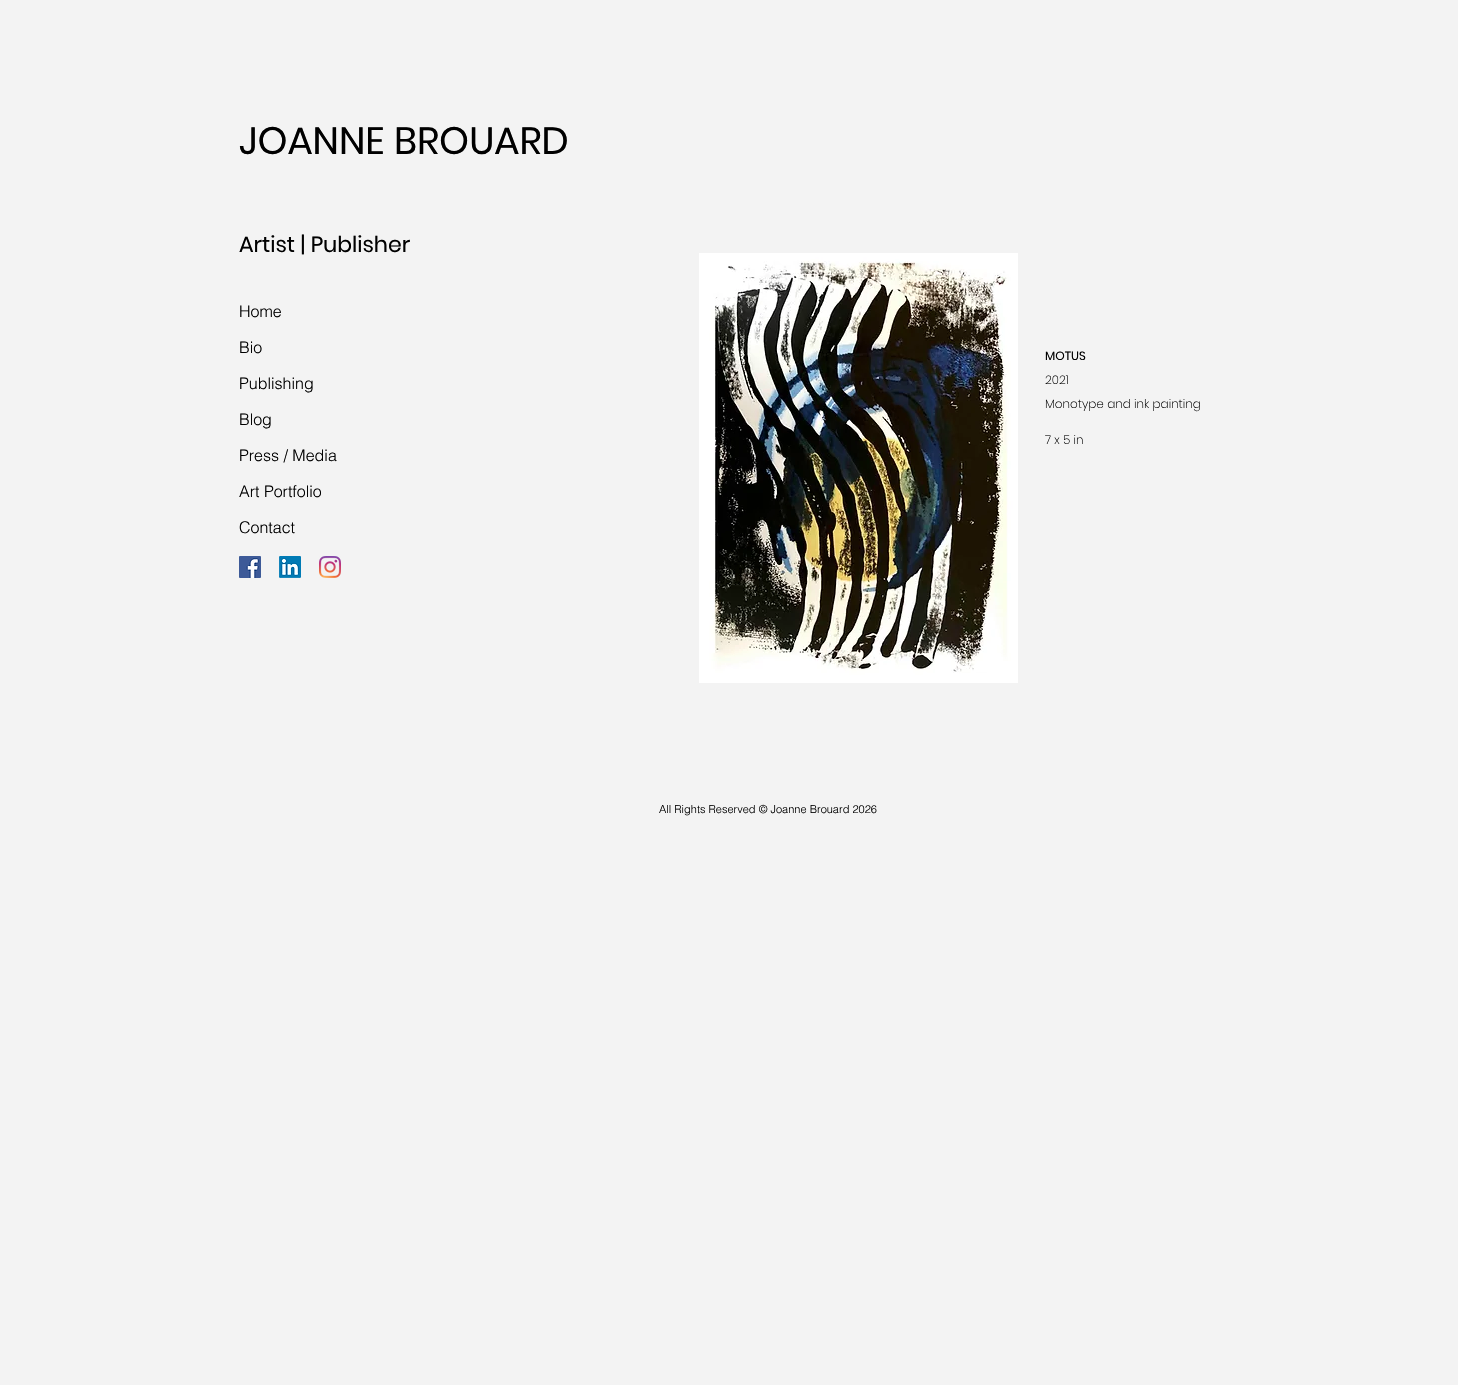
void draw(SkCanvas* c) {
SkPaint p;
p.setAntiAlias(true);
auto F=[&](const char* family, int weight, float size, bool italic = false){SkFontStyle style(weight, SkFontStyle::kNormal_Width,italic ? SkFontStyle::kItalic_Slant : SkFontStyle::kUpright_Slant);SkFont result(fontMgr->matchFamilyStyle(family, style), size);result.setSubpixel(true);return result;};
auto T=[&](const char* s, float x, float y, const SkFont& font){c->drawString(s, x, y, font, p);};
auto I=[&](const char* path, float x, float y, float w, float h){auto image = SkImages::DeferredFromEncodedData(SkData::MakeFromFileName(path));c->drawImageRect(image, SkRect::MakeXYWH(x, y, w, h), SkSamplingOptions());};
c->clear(0xfff3f3f3);
auto f1 = F("Poppins",400,38);
p.setColor(0xff000000);
T("JOANNE BROUARD",239,154,f1);
auto f2 = F("Poppins",400,22);
T("Artist | Publisher",239,252,f2);
auto f3 = F("helvetica",300,16);
T("Home",239,317,f3);
T("Bio",239,353,f3);
T("Publishing",239,389,f3);
T("Blog",239,425,f3);
T("Press / Media",239,461,f3);
T("Art Portfolio",239,497,f3);
T("Contact",239,533,f3);
I("1.png",239,556,22,22);
I("2.png",279,556,22,22);
I("3.png",319,556,22,22);
I("4.png",699,253,319,430);
auto f4 = F("Poppins",400,12);
T("MOTUS",1045,360,f4);
auto f5 = F("Poppins",200,12);
T("2021",1045,384,f5);
T("Monotype and ink painting",1045,408,f5);
T("7 x 5 in",1045,444,f5);
auto f6 = F("helvetica",300,11);
T("All Rights Reserved © Joanne Brouard 2026",659,813,f6);
}
